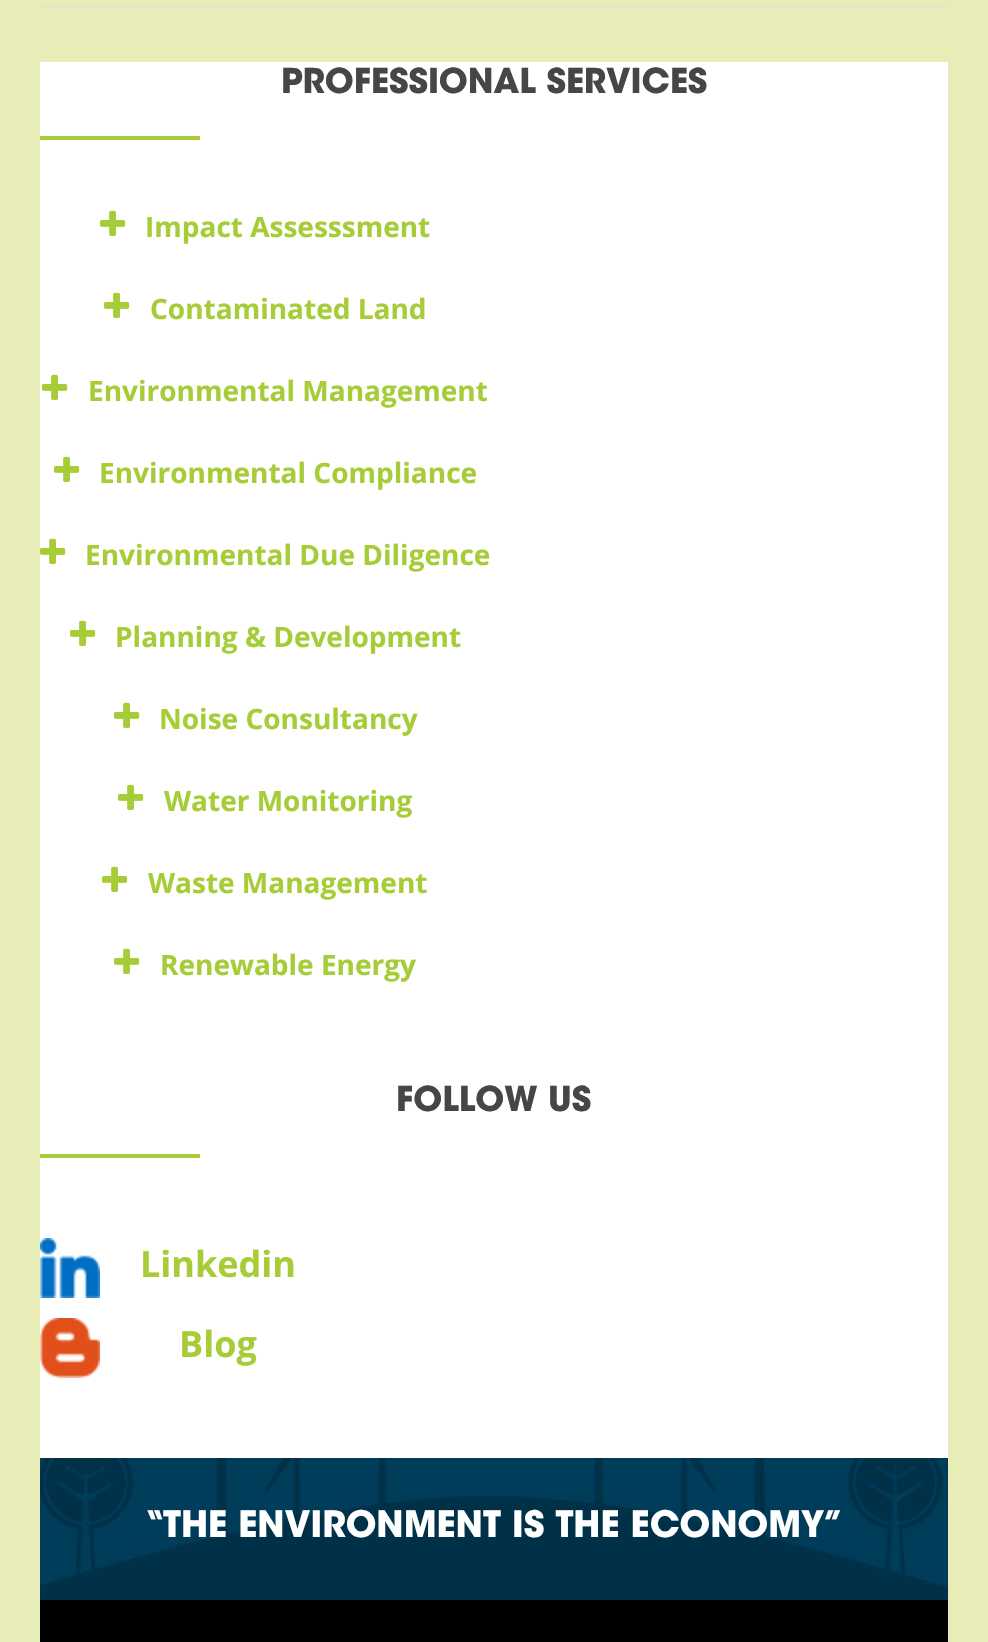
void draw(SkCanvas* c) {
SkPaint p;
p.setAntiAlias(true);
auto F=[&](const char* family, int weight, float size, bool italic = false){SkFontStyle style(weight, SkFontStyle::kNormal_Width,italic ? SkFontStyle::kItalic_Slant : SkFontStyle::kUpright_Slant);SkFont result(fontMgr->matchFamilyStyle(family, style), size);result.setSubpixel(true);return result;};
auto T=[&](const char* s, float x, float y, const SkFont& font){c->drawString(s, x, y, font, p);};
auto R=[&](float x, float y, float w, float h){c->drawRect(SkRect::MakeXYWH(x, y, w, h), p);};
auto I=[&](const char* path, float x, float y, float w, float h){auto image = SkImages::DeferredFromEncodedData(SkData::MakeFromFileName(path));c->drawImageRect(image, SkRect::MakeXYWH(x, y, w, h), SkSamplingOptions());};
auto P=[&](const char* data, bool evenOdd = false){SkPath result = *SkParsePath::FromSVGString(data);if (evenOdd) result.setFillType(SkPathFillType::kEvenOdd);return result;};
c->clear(0xffe8edb8);
p.setStroke(true);
p.setStrokeWidth(2);
p.setColor(0xffe0e0e0);
p.setPathEffect(SkDashPathEffect::Make({{2,2}}, 0));
c->drawPath(P("M40 7h908"),p);
p.setPathEffect(nullptr);
p.setStroke(false);
p.setColor(0xffffffff);
R(40,62,908,1396);
auto f1 = F("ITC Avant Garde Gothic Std",700,34);
p.setColor(0xff464646);
T("PROFESSIONAL SERVICES",281,93,f1);
p.setColor(0xffa6cd37);
R(40,136,160,4);
I("1.png",100,210,26,26);
auto f2 = F("Open Sans",700,28);
T("Impact Assesssment",145,237,f2);
I("1.png",104,292,26,26);
T("Contaminated Land",150,319,f2);
I("1.png",42,374,26,26);
T("Environmental Management",88,401,f2);
I("1.png",54,456,26,26);
T("Environmental Compliance",99,483,f2);
I("1.png",40,538,26,26);
T("Environmental Due Diligence",85,565,f2);
I("1.png",70,620,26,26);
T("Planning & Development",115,647,f2);
I("1.png",114,702,26,26);
T("Noise Consultancy",159,729,f2);
I("1.png",118,784,26,26);
T("Water Monitoring",164,811,f2);
I("1.png",102,866,26,26);
T("Waste Management",148,893,f2);
I("1.png",114,948,26,26);
T("Renewable Energy",160,975,f2);
p.setColor(0xff464646);
T("FOLLOW US",396,1111,f1);
p.setColor(0xffa6cd37);
R(40,1154,160,4);
I("2.png",40,1238,60,60);
auto f3 = F("Open Sans",700,36);
T("Linkedin",140,1277,f3);
I("3.png",40,1318,60,60);
T("Blog",179,1357,f3);
I("4.png",40,1458,908,142);
auto f4 = F("ITC Avant Garde Gothic Std",700,36);
p.setColor(0xffffffff);
T("“THE ENVIRONMENT IS THE ECONOMY”",143,1537,f4);
p.setColor(0xff000000);
R(40,1600,908,42);
}
